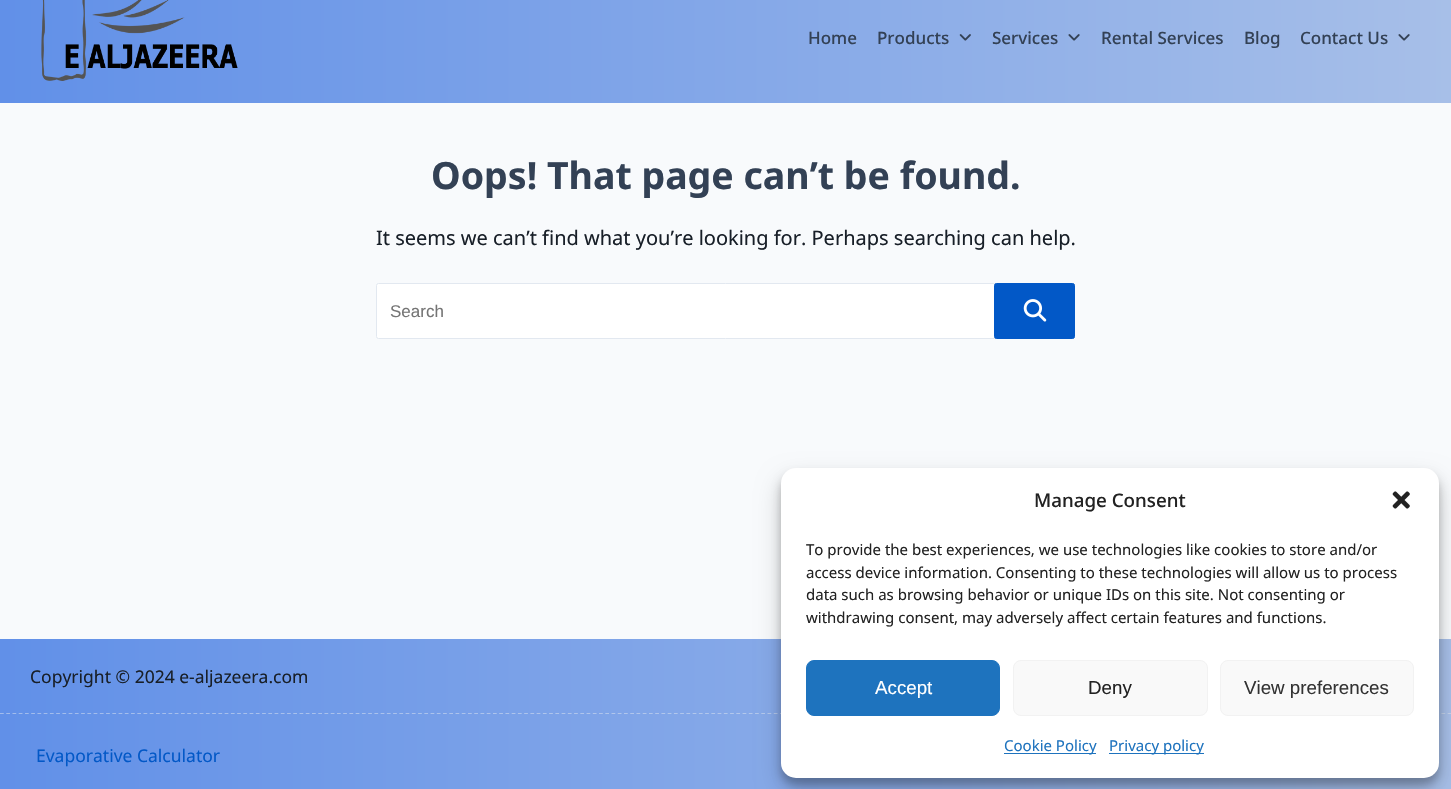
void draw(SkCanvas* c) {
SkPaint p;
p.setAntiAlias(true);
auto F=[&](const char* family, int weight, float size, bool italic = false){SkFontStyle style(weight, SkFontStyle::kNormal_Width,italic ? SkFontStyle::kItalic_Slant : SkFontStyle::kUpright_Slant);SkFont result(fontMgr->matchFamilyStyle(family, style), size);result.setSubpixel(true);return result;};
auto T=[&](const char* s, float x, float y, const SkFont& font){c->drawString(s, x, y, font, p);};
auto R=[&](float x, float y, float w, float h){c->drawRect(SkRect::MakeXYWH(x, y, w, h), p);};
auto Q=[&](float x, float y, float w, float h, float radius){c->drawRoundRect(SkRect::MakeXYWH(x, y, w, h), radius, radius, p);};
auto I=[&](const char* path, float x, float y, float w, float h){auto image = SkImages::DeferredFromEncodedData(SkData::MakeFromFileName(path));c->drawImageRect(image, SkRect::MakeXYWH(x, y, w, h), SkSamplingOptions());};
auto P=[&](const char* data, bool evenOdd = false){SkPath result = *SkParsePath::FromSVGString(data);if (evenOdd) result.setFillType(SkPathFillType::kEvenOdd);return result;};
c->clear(0xfff8fafc);
{
const SkColor colors[] = {0xff6190e8,0xffa7bfe8};
const float stops[] = {0,1};
const SkPoint ends[] = {{0,37}, {1451,37}};
p.setShader(SkGradientShader::MakeLinear(ends, colors, stops, 2, SkTileMode::kClamp));
p.setAlpha(255);
}
R(0,0,1451,103);
I("1.png",41,0,197,81);
auto f1 = F("Noto Sans",500,17);
p.setShader(nullptr);
p.setColor(0xff334155);
T("Home",808,44,f1);
T("Products",877,44,f1);
I("2.png",959,34,12,7);
T("Services",992,44,f1);
I("3.png",1068,34,12,7);
T("Rental Services",1101,44,f1);
T("Blog",1244,44,f1);
T("Contact Us",1300,44,f1);
I("4.png",1398,34,12,7);
auto f2 = F("Noto Sans",700,37.5);
T("Oops! That page can’t be found.",431,189,f2);
auto f3 = F("Noto Sans",400,20);
p.setColor(0xff181f28);
T("It seems we can’t find what you’re looking for. Perhaps searching can help.",376,245,f3);
p.setColor(0xffffffff);
c->drawRoundRect(SkRect::MakeXYWH(376.5,283.5,698,55),2,2,p);
p.setStroke(true);
p.setStrokeWidth(1);
p.setColor(0xffe2e8f0);
c->drawRoundRect(SkRect::MakeXYWH(376.5,283.5,698,55),2,2,p);
auto f4 = F("Liberation Sans",400,17);
p.setStroke(false);
p.setColor(0xff757575);
T("Search",390,317,f4);
p.setColor(0xff0258c7);
c->drawRoundRect(SkRect::MakeXYWH(994.5,283.5,80,55),2,2,p);
p.setStroke(true);
c->drawRoundRect(SkRect::MakeXYWH(994.5,283.5,80,55),2,2,p);
I("5.png",1023,299,24,23);
p.setStroke(false);
{
const SkColor colors[] = {0xff6190e8,0xffa7bfe8};
const float stops[] = {0,1};
const SkPoint ends[] = {{0,754}, {1451,754}};
p.setShader(SkGradientShader::MakeLinear(ends, colors, stops, 2, SkTileMode::kClamp));
p.setAlpha(255);
}
R(0,713,1451,76);
p.setStroke(true);
p.setStrokeWidth(1.2);
p.setShader(nullptr);
p.setColor(0xffe2e8f0);
p.setPathEffect(SkDashPathEffect::Make({{3.75f,2.49f}}, 0));
c->drawPath(P("M0 713h1451"),p);
p.setPathEffect(nullptr);
p.setStroke(false);
{
const SkColor colors[] = {0xff6190e8,0xffa7bfe8};
const float stops[] = {0,1};
const SkPoint ends[] = {{0,676}, {1451,676}};
p.setShader(SkGradientShader::MakeLinear(ends, colors, stops, 2, SkTileMode::kClamp));
p.setAlpha(255);
}
R(0,639,1451,74);
auto f5 = F("Noto Sans",400,17.5);
p.setShader(nullptr);
p.setColor(0xff181f28);
T("Copyright © 2024 e-aljazeera.com",30,683,f5);
p.setColor(0xff0258c7);
T("Evaporative Calculator",36,762,f5);
p.setColor(0x3b000000);
p.setMaskFilter(SkMaskFilter::MakeBlur(kNormal_SkBlurStyle, 4));
c->drawRoundRect(SkRect::MakeXYWH(781,475,658,310),15,15,p);
p.setMaskFilter(nullptr);
p.setColor(0x30000000);
p.setMaskFilter(SkMaskFilter::MakeBlur(kNormal_SkBlurStyle, 12.5));
c->drawRoundRect(SkRect::MakeXYWH(781,480,658,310),15,15,p);
p.setMaskFilter(nullptr);
p.setColor(0xffffffff);
Q(781,468,658,310,15);
auto f6 = F("Noto Sans",500,18.75);
p.setColor(0xff222222);
T("Manage Consent",1034,507,f6);
I("6.png",1392,491,18,18);
auto f7 = F("Noto Sans",400,15);
T("To provide the best experiences, we use technologies like cookies to store and/or",806,555,f7);
T("access device information. Consenting to these technologies will allow us to process",806,578,f7);
T("data such as browsing behavior or unique IDs on this site. Not consenting or",806,600,f7);
T("withdrawing consent, may adversely affect certain features and functions.",806,623,f7);
p.setColor(0xff1e73be);
c->drawRoundRect(SkRect::MakeXYWH(806.5,660.5,193,55),7.5,7.5,p);
p.setStroke(true);
p.setStrokeWidth(1);
c->drawRoundRect(SkRect::MakeXYWH(806.5,660.5,193,55),7.5,7.5,p);
auto f8 = F("Liberation Sans",400,18.75);
p.setStroke(false);
p.setColor(0xffffffff);
T("Accept",875,694,f8);
p.setColor(0xfff9f9f9);
c->drawRoundRect(SkRect::MakeXYWH(1013.5,660.5,194,55),7.5,7.5,p);
p.setStroke(true);
p.setColor(0xfff2f2f2);
c->drawRoundRect(SkRect::MakeXYWH(1013.5,660.5,194,55),7.5,7.5,p);
p.setStroke(false);
p.setColor(0xff222222);
T("Deny",1088,694,f8);
p.setColor(0xfff9f9f9);
c->drawRoundRect(SkRect::MakeXYWH(1220.5,660.5,193,55),7.5,7.5,p);
p.setStroke(true);
p.setColor(0xfff2f2f2);
c->drawRoundRect(SkRect::MakeXYWH(1220.5,660.5,193,55),7.5,7.5,p);
p.setStroke(false);
p.setColor(0xff333333);
T("View preferences",1244,694,f8);
p.setColor(0xff1e73be);
R(1004,753,92,1);
T("Cookie Policy",1004,751,f7);
R(1109,753,95,1);
T("Privacy policy",1109,751,f7);
}
